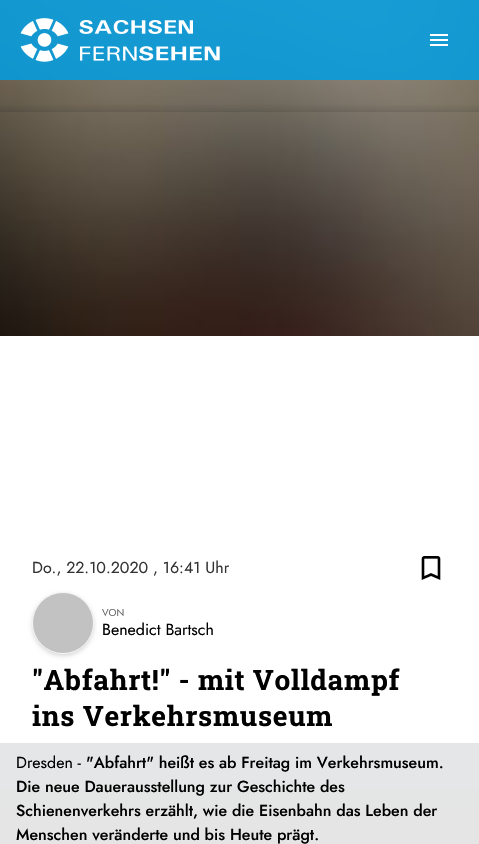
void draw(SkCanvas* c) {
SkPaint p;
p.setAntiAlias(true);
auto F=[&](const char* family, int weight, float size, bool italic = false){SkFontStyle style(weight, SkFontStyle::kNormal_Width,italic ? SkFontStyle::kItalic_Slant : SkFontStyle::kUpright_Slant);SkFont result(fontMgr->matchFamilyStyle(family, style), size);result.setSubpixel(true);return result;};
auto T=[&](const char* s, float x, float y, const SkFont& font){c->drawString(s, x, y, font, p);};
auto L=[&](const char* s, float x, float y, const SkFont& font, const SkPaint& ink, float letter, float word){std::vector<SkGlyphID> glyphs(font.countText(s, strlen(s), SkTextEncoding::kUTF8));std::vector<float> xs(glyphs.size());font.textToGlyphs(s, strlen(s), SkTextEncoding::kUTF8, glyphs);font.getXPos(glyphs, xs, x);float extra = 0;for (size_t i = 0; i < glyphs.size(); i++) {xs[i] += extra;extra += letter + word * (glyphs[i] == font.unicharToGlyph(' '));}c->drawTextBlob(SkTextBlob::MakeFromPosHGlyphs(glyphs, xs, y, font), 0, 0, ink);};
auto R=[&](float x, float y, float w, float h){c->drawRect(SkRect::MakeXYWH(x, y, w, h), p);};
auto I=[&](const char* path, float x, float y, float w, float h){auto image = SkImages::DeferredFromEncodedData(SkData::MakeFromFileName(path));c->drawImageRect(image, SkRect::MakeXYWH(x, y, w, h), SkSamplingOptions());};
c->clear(0xffffffff);
I("3.png",0,0,479,336);
p.setColor(0xd9009ee3);
R(0,0,479,80);
I("1.png",20,18,200,44);
I("2.png",430,34,18,12);
{
const SkColor colors[] = {0xffd9f1fc,0xffe5e5e5};
const float stops[] = {0,1};
const SkPoint ends[] = {{239,0}, {240,844}};
p.setShader(SkGradientShader::MakeLinear(ends, colors, stops, 2, SkTileMode::kClamp));
p.setAlpha(255);
}
R(0,743,479,101);
I("4.png",421,556,20,24);
c->save();
c->clipRect(SkRect::MakeXYWH(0,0,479,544));
c->clipRect(SkRect::MakeXYWH(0,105,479,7));
p.setShader(nullptr);
p.setColor(0x66000000);
p.setMaskFilter(SkMaskFilter::MakeBlur(kNormal_SkBlurStyle, 7.5));
c->drawRect(SkRect::MakeXYWH(-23,117,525,422),p);
p.setMaskFilter(nullptr);
c->restore();
auto f1 = F("Jost",400,16);
p.setColor(0xff333333);
T("Do., 22.10.2020 , 16:41 Uhr",32,573,f1);
p.setColor(0x26000000);
p.setMaskFilter(SkMaskFilter::MakeBlur(kNormal_SkBlurStyle, 2));
c->drawRoundRect(SkRect::MakeXYWH(32,594,62,62),31,31,p);
p.setMaskFilter(nullptr);
p.setColor(0xffd8d8d8);
c->drawCircle(63,623,30.5,p);
p.setStroke(true);
p.setStrokeWidth(1);
p.setColor(0xfff5f5f5);
c->drawCircle(63,623,30.5,p);
p.setStroke(false);
p.setColor(0x1a000000);
c->drawCircle(63,623,30,p);
auto f2 = F("Jost",400,10);
p.setColor(0xff666666);
T("VON",102,616,f2);
p.setColor(0xff000000);
T("Benedict Bartsch",102,635,f1);
auto f3 = F("Roboto Slab",700,28);
L("\"Abfahrt!\" - mit Volldampf",32,690,f3,p,.7,0);
L("ins Verkehrsmuseum",32,726,f3,p,.7,0);
T("Dresden -",16,768,f1);
auto f4 = F("Jost",500,16);
T("\"Abfahrt\" heißt es ab Freitag im Verkehrsmuseum.",86,768,f4);
T("Die neue Dauerausstellung zur Geschichte des",16,792,f4);
T("Schienenverkehrs erzählt, wie die Eisenbahn das Leben der",16,816,f4);
T("Menschen veränderte und bis Heute prägt.",16,840,f4);
}
